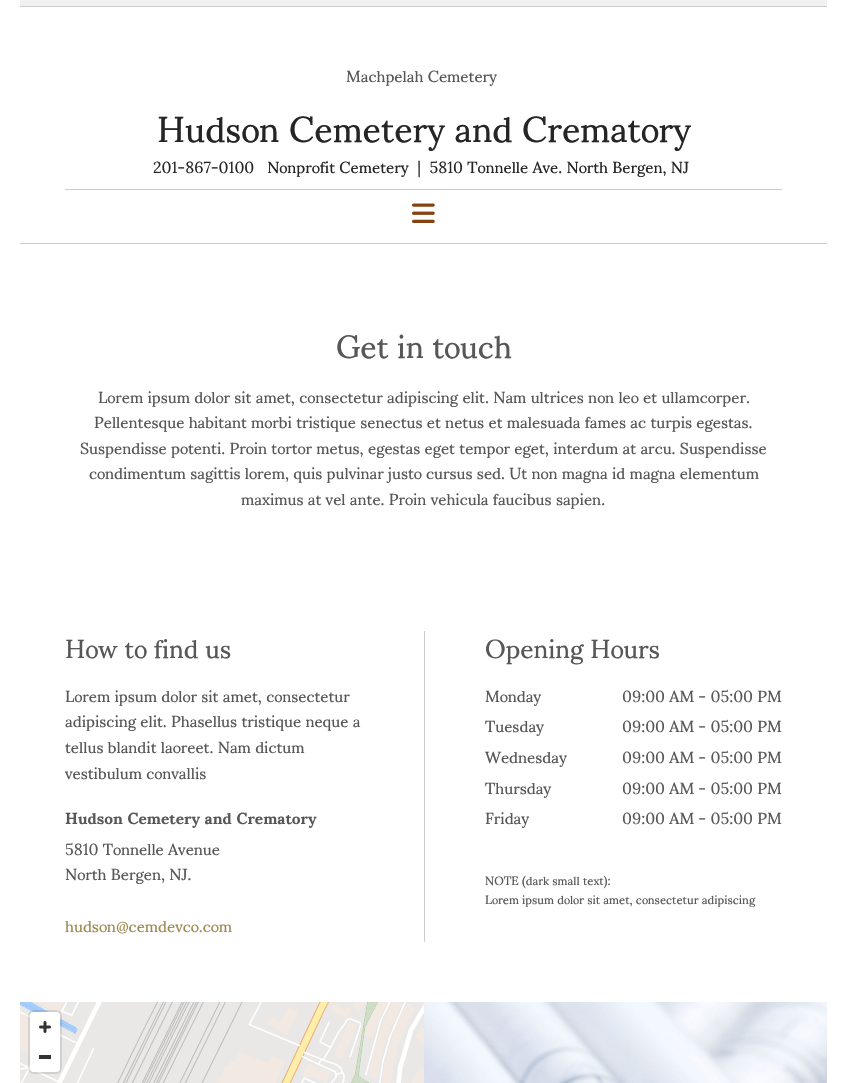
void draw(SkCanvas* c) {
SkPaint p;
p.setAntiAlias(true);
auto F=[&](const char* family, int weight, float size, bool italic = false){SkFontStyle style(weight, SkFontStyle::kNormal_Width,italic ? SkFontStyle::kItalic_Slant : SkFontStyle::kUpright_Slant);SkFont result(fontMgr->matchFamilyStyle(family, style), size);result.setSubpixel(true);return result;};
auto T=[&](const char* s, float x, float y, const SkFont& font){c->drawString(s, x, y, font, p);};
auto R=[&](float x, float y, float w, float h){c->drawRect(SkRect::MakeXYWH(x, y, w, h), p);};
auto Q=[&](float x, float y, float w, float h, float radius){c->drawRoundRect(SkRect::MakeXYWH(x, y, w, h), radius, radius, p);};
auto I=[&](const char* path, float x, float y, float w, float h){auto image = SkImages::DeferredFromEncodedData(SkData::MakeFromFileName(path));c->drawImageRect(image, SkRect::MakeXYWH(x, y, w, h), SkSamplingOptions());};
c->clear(0xffffffff);
p.setColor(0xfff1f1f1);
R(20,0,807,6);
p.setColor(0xffcccccc);
R(20,6,807,1);
R(20,243,807,1);
auto f1 = F("Sumana",400,16);
p.setColor(0xff575757);
T("Machpelah Cemetery",346,82,f1);
auto f2 = F("Sumana",400,36);
p.setColor(0xff252525);
T("Hudson Cemetery and Crematory",157,142,f2);
T("201-867-0100   Nonprofit Cemetery  |  5810 Tonnelle Ave. North Bergen, NJ",153,173,f1);
p.setColor(0xffcccccc);
R(65,189,717,1);
I("1.png",412,203,23,20);
auto f3 = F("Sumana",400,32);
p.setColor(0xff575757);
T("Get in touch",336,358,f3);
T("Lorem ipsum dolor sit amet, consectetur adipiscing elit. Nam ultrices non leo et ullamcorper.",98,403,f1);
T("Pellentesque habitant morbi tristique senectus et netus et malesuada fames ac turpis egestas.",94,428,f1);
T("Suspendisse potenti. Proin tortor metus, egestas eget tempor eget, interdum at arcu. Suspendisse",80,454,f1);
T("condimentum sagittis lorem, quis pulvinar justo cursus sed. Ut non magna id magna elementum",89,479,f1);
T("maximus at vel ante. Proin vehicula faucibus sapien.",241,505,f1);
auto f4 = F("Sumana",400,26);
T("How to find us",65,658,f4);
T("Lorem ipsum dolor sit amet, consectetur",65,702,f1);
T("adipiscing elit. Phasellus tristique neque a",65,727,f1);
T("tellus blandit laoreet. Nam dictum",65,753,f1);
T("vestibulum convallis",65,779,f1);
auto f5 = F("Sumana",700,16);
T("Hudson Cemetery and Crematory",65,824,f5);
T("5810 Tonnelle Avenue",65,855,f1);
T("North Bergen, NJ.",65,880,f1);
p.setColor(0xff9e8b52);
T("hudson@cemdevco.com",65,932,f1);
p.setColor(0xffcccccc);
R(424,631,1,311);
p.setColor(0xff575757);
T("Opening Hours",485,658,f4);
T("Monday",485,702,f1);
T("09:00 AM - 05:00 PM",622,702,f1);
T("Tuesday",485,732,f1);
T("09:00 AM - 05:00 PM",622,732,f1);
T("Wednesday",485,763,f1);
T("09:00 AM - 05:00 PM",622,763,f1);
T("Thursday",485,794,f1);
T("09:00 AM - 05:00 PM",622,794,f1);
T("Friday",485,824,f1);
T("09:00 AM - 05:00 PM",622,824,f1);
auto f6 = F("Sumana",400,12);
T("NOTE (dark small text):",485,885,f6);
T("Lorem ipsum dolor sit amet, consectetur adipiscing",485,904,f6);
I("2.png",20,1002,404,81);
p.setStroke(true);
p.setStrokeWidth(2);
p.setColor(0x1a000000);
c->drawRoundRect(SkRect::MakeXYWH(29,1011,32,62),5,5,p);
p.setStroke(false);
p.setColor(0xffffffff);
Q(30,1012,30,60,4);
I("3.png",39,1021,12,12);
p.setColor(0xff333333);
R(39,1055,12,4);
I("4.png",424,1002,403,81);
}
